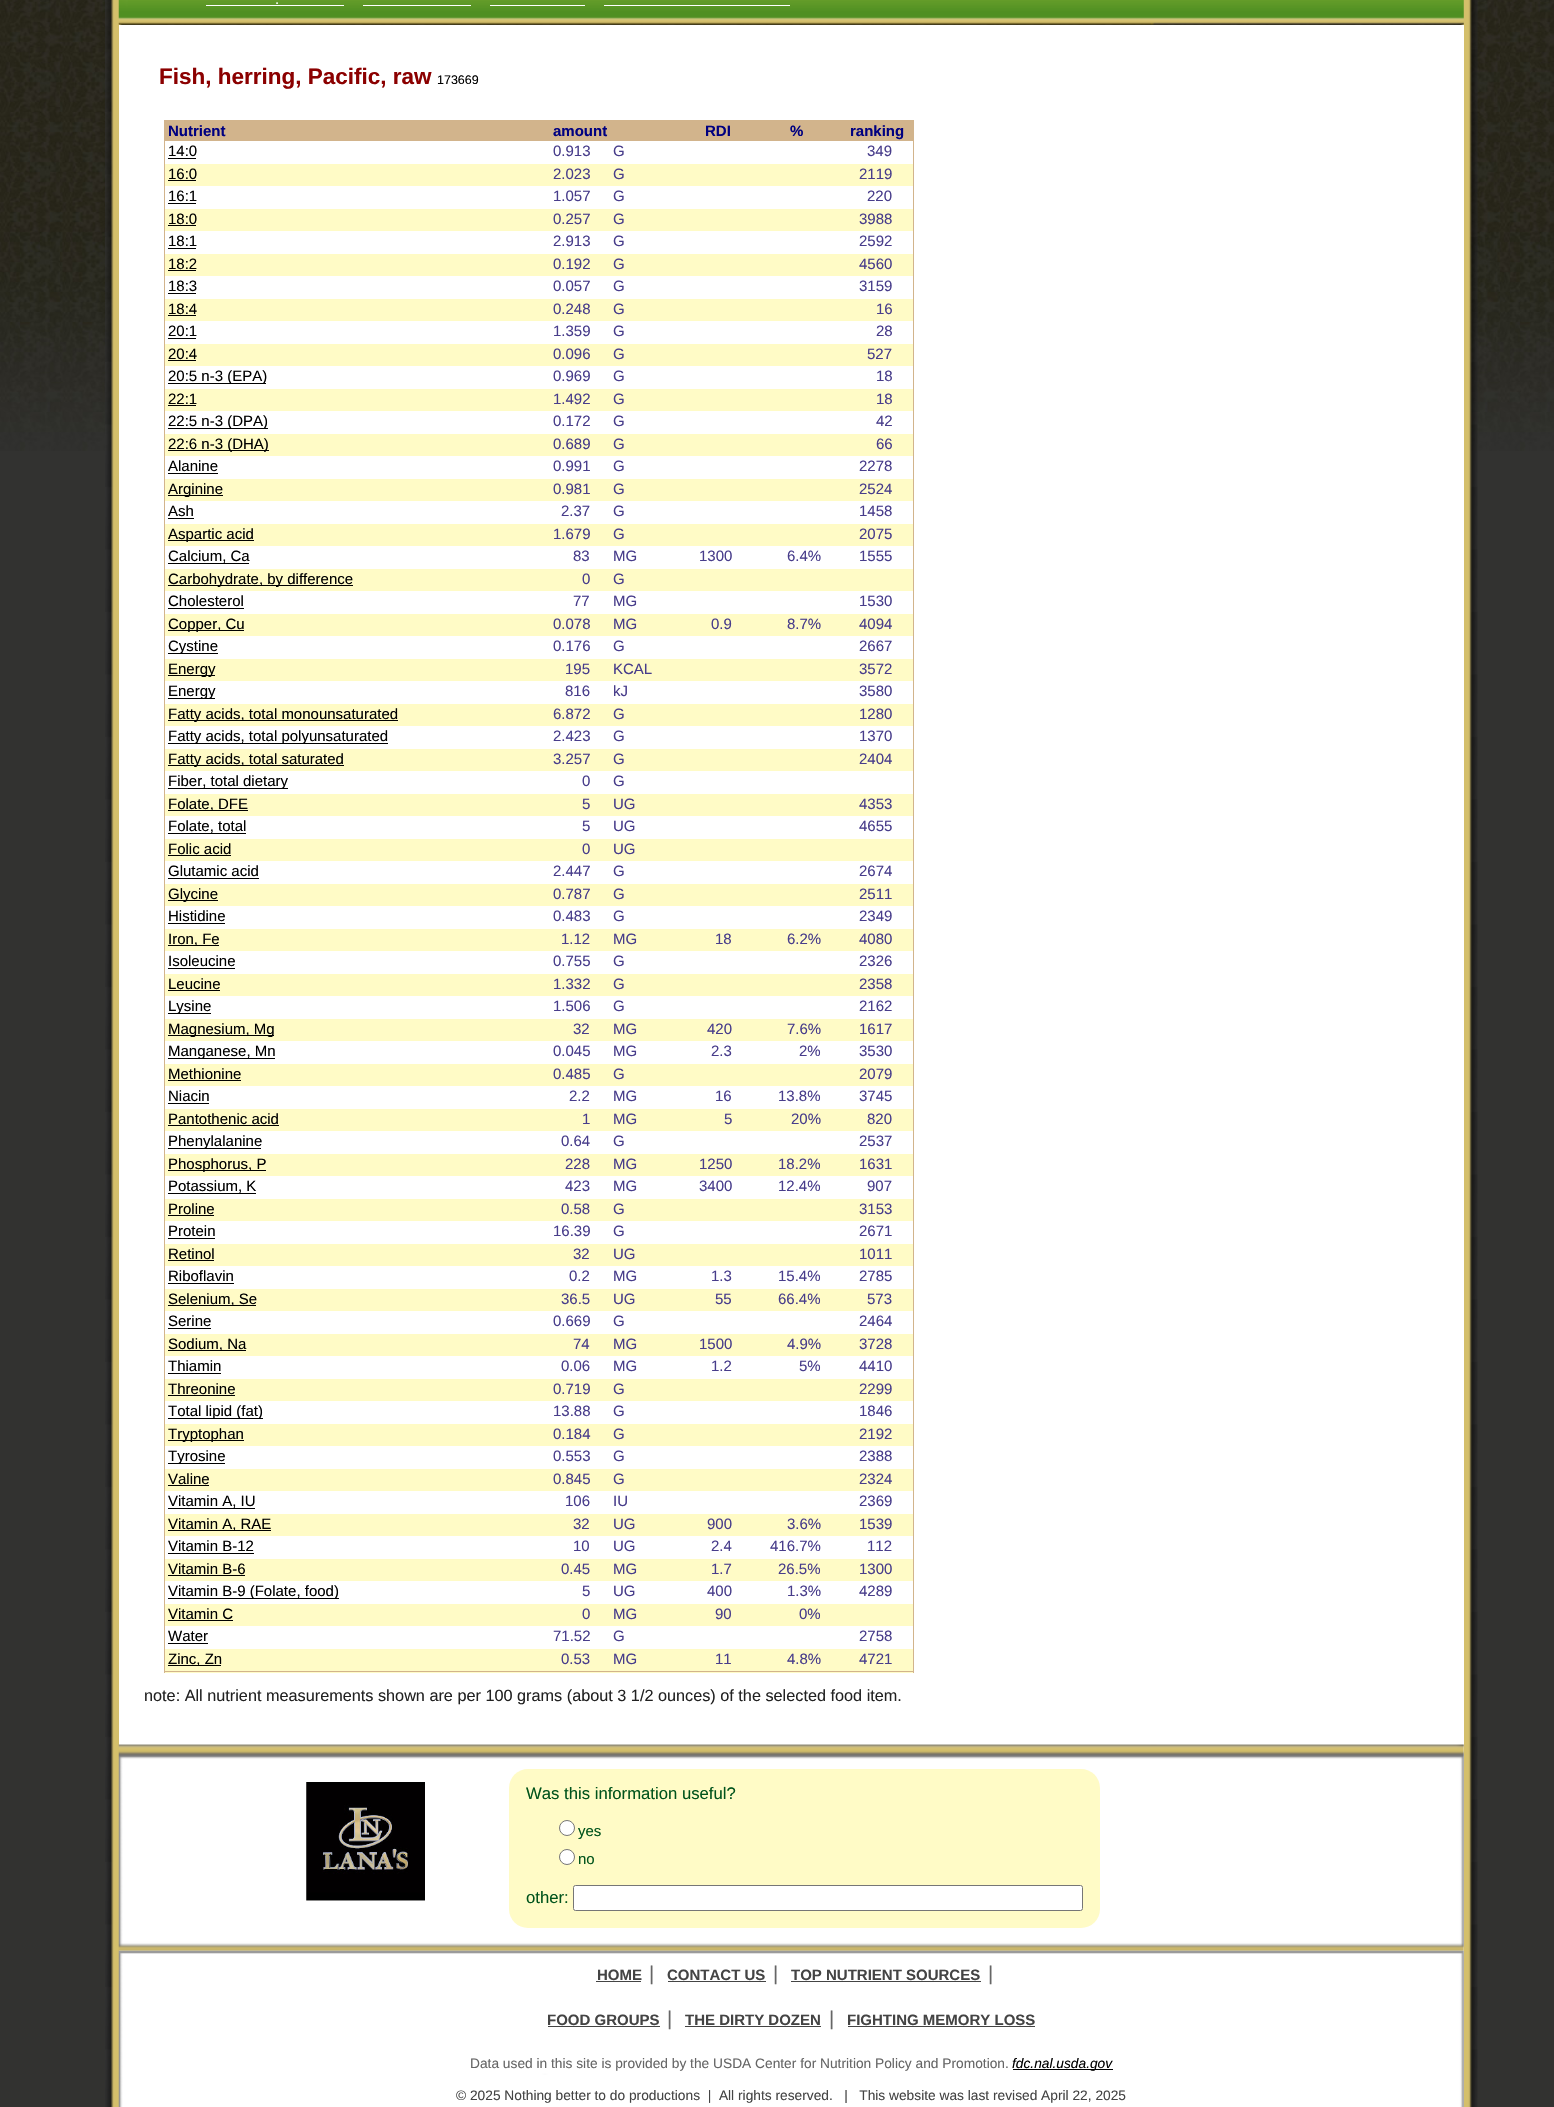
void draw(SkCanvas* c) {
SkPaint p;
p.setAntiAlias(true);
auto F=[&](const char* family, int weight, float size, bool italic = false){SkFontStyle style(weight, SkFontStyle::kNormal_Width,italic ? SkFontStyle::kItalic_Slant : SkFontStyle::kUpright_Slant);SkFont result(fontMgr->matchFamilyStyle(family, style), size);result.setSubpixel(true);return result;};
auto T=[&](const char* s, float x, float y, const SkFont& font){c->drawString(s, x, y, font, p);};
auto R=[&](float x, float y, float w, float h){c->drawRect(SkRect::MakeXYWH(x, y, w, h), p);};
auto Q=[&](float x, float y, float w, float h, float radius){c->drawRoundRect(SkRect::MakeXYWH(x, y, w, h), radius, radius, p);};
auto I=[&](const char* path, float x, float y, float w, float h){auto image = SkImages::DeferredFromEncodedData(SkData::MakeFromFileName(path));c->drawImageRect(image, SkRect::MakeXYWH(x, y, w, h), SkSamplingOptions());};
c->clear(0xff323230);
I("1.png",0,0,1554,451);
I("2.png",105,0,1373,2107);
I("3.png",118,0,1346,25);
auto f1 = F("Liberation Sans",400,15);
p.setColor(0xffffffff);
T(".",275,4,f1);
R(206,5,138,1);
R(363,5,108,1);
R(490,5,95,1);
R(604,5,186,1);
R(119,25,1345,2082);
auto f2 = F("Liberation Sans",700,22.5);
p.setColor(0xff8b0000);
T("Fish, herring, Pacific, raw",159,84,f2);
auto f3 = F("Liberation Sans",400,12.5);
p.setColor(0xff000000);
T("173669",437,84,f3);
p.setColor(0xffd2b48c);
R(164,120,750,1);
R(913,120,1,1553);
p.setColor(0xfffffbc6);
R(165,1649,748,24);
p.setColor(0xffd2b48c);
R(164,1671,750,1);
R(164,120,1,1553);
R(165,121,748,20);
auto f4 = F("Liberation Sans",700,15);
p.setColor(0xff000080);
T("Nutrient",168,136,f4);
T("amount",553,136,f4);
T("RDI",705,136,f4);
T("%",790,136,f4);
T("ranking",850,136,f4);
p.setColor(0xff000000);
T("14:0",168,156,f1);
R(168,158,28,1);
p.setColor(0xff483d8b);
T("0.913",553,156,f1);
T("G",613,156,f1);
T("349",867,156,f1);
p.setColor(0xfffffbc6);
R(165,164,748,22);
p.setColor(0xff000000);
T("16:0",168,179,f1);
R(168,180,28,1);
p.setColor(0xff483d8b);
T("2.023",553,179,f1);
T("G",613,179,f1);
T("2119",859,179,f1);
p.setColor(0xff000000);
T("16:1",168,201,f1);
R(168,203,28,1);
p.setColor(0xff483d8b);
T("1.057",553,201,f1);
T("G",613,201,f1);
T("220",867,201,f1);
p.setColor(0xfffffbc6);
R(165,209,748,22);
p.setColor(0xff000000);
T("18:0",168,224,f1);
R(168,225,28,1);
p.setColor(0xff483d8b);
T("0.257",553,224,f1);
T("G",613,224,f1);
T("3988",859,224,f1);
p.setColor(0xff000000);
T("18:1",168,246,f1);
R(168,248,28,1);
p.setColor(0xff483d8b);
T("2.913",553,246,f1);
T("G",613,246,f1);
T("2592",859,246,f1);
p.setColor(0xfffffbc6);
R(165,254,748,22);
p.setColor(0xff000000);
T("18:2",168,269,f1);
R(168,270,28,1);
p.setColor(0xff483d8b);
T("0.192",553,269,f1);
T("G",613,269,f1);
T("4560",859,269,f1);
p.setColor(0xff000000);
T("18:3",168,291,f1);
R(168,293,28,1);
p.setColor(0xff483d8b);
T("0.057",553,291,f1);
T("G",613,291,f1);
T("3159",859,291,f1);
p.setColor(0xfffffbc6);
R(165,299,748,22);
p.setColor(0xff000000);
T("18:4",168,314,f1);
R(168,315,28,1);
p.setColor(0xff483d8b);
T("0.248",553,314,f1);
T("G",613,314,f1);
T("16",876,314,f1);
p.setColor(0xff000000);
T("20:1",168,336,f1);
R(168,338,28,1);
p.setColor(0xff483d8b);
T("1.359",553,336,f1);
T("G",613,336,f1);
T("28",876,336,f1);
p.setColor(0xfffffbc6);
R(165,344,748,22);
p.setColor(0xff000000);
T("20:4",168,359,f1);
R(168,360,28,1);
p.setColor(0xff483d8b);
T("0.096",553,359,f1);
T("G",613,359,f1);
T("527",867,359,f1);
p.setColor(0xff000000);
R(168,383,98,1);
T("20:5 n-3 (EPA)",168,381,f1);
p.setColor(0xff483d8b);
T("0.969",553,381,f1);
T("G",613,381,f1);
T("18",876,381,f1);
p.setColor(0xfffffbc6);
R(165,389,748,22);
p.setColor(0xff000000);
T("22:1",168,404,f1);
R(168,405,28,1);
p.setColor(0xff483d8b);
T("1.492",553,404,f1);
T("G",613,404,f1);
T("18",876,404,f1);
p.setColor(0xff000000);
R(168,428,100,1);
T("22:5 n-3 (DPA)",168,426,f1);
p.setColor(0xff483d8b);
T("0.172",553,426,f1);
T("G",613,426,f1);
T("42",876,426,f1);
p.setColor(0xfffffbc6);
R(165,434,748,22);
p.setColor(0xff000000);
R(168,450,101,1);
T("22:6 n-3 (DHA)",168,449,f1);
p.setColor(0xff483d8b);
T("0.689",553,449,f1);
T("G",613,449,f1);
T("66",876,449,f1);
p.setColor(0xff000000);
T("Alanine",168,471,f1);
R(168,473,50,1);
p.setColor(0xff483d8b);
T("0.991",553,471,f1);
T("G",613,471,f1);
T("2278",859,471,f1);
p.setColor(0xfffffbc6);
R(165,479,748,22);
p.setColor(0xff000000);
R(168,495,55,1);
T("Arginine",168,494,f1);
p.setColor(0xff483d8b);
T("0.981",553,494,f1);
T("G",613,494,f1);
T("2524",859,494,f1);
p.setColor(0xff000000);
T("Ash",168,516,f1);
R(168,518,26,1);
p.setColor(0xff483d8b);
T("2.37",561,516,f1);
T("G",613,516,f1);
T("1458",859,516,f1);
p.setColor(0xfffffbc6);
R(165,524,748,22);
p.setColor(0xff000000);
R(168,540,86,1);
T("Aspartic acid",168,539,f1);
p.setColor(0xff483d8b);
T("1.679",553,539,f1);
T("G",613,539,f1);
T("2075",859,539,f1);
p.setColor(0xff000000);
T("Calcium, Ca",168,561,f1);
R(168,563,81,1);
p.setColor(0xff483d8b);
T("83",573,561,f1);
T("MG",613,561,f1);
T("1300",699,561,f1);
T("6.4%",787,561,f1);
T("1555",859,561,f1);
p.setColor(0xfffffbc6);
R(165,569,748,22);
p.setColor(0xff000000);
R(168,585,185,1);
T("Carbohydrate, by difference",168,584,f1);
p.setColor(0xff483d8b);
T("0",582,584,f1);
T("G",613,584,f1);
p.setColor(0xff000000);
T("Cholesterol",168,606,f1);
R(168,608,76,1);
p.setColor(0xff483d8b);
T("77",573,606,f1);
T("MG",613,606,f1);
T("1530",859,606,f1);
p.setColor(0xfffffbc6);
R(165,614,748,22);
p.setColor(0xff000000);
R(168,630,76,1);
T("Copper, Cu",168,629,f1);
p.setColor(0xff483d8b);
T("0.078",553,629,f1);
T("MG",613,629,f1);
T("0.9",711,629,f1);
T("8.7%",787,629,f1);
T("4094",859,629,f1);
p.setColor(0xff000000);
R(168,653,50,1);
T("Cystine",168,651,f1);
p.setColor(0xff483d8b);
T("0.176",553,651,f1);
T("G",613,651,f1);
T("2667",859,651,f1);
p.setColor(0xfffffbc6);
R(165,659,748,22);
p.setColor(0xff000000);
R(168,675,47,1);
T("Energy",168,674,f1);
p.setColor(0xff483d8b);
T("195",565,674,f1);
T("KCAL",613,674,f1);
T("3572",859,674,f1);
p.setColor(0xff000000);
R(168,698,47,1);
T("Energy",168,696,f1);
p.setColor(0xff483d8b);
T("816",565,696,f1);
T("kJ",613,696,f1);
T("3580",859,696,f1);
p.setColor(0xfffffbc6);
R(165,704,748,22);
p.setColor(0xff000000);
R(168,720,230,1);
T("Fatty acids, total monounsaturated",168,719,f1);
p.setColor(0xff483d8b);
T("6.872",553,719,f1);
T("G",613,719,f1);
T("1280",859,719,f1);
p.setColor(0xff000000);
R(168,743,220,1);
T("Fatty acids, total polyunsaturated",168,741,f1);
p.setColor(0xff483d8b);
T("2.423",553,741,f1);
T("G",613,741,f1);
T("1370",859,741,f1);
p.setColor(0xfffffbc6);
R(165,749,748,22);
p.setColor(0xff000000);
R(168,765,176,1);
T("Fatty acids, total saturated",168,764,f1);
p.setColor(0xff483d8b);
T("3.257",553,764,f1);
T("G",613,764,f1);
T("2404",859,764,f1);
p.setColor(0xff000000);
R(168,788,120,1);
T("Fiber, total dietary",168,786,f1);
p.setColor(0xff483d8b);
T("0",582,786,f1);
T("G",613,786,f1);
p.setColor(0xfffffbc6);
R(165,794,748,22);
p.setColor(0xff000000);
R(168,810,80,1);
T("Folate, DFE",168,809,f1);
p.setColor(0xff483d8b);
T("5",582,809,f1);
T("UG",613,809,f1);
T("4353",859,809,f1);
p.setColor(0xff000000);
T("Folate, total",168,831,f1);
R(168,833,78,1);
p.setColor(0xff483d8b);
T("5",582,831,f1);
T("UG",613,831,f1);
T("4655",859,831,f1);
p.setColor(0xfffffbc6);
R(165,839,748,22);
p.setColor(0xff000000);
T("Folic acid",168,854,f1);
R(168,855,63,1);
p.setColor(0xff483d8b);
T("0",582,854,f1);
T("UG",613,854,f1);
p.setColor(0xff000000);
T("Glutamic acid",168,876,f1);
R(168,878,91,1);
p.setColor(0xff483d8b);
T("2.447",553,876,f1);
T("G",613,876,f1);
T("2674",859,876,f1);
p.setColor(0xfffffbc6);
R(165,884,748,22);
p.setColor(0xff000000);
R(168,900,50,1);
T("Glycine",168,899,f1);
p.setColor(0xff483d8b);
T("0.787",553,899,f1);
T("G",613,899,f1);
T("2511",859,899,f1);
p.setColor(0xff000000);
T("Histidine",168,921,f1);
R(168,923,57,1);
p.setColor(0xff483d8b);
T("0.483",553,921,f1);
T("G",613,921,f1);
T("2349",859,921,f1);
p.setColor(0xfffffbc6);
R(165,929,748,22);
p.setColor(0xff000000);
R(168,945,51,1);
T("Iron, Fe",168,944,f1);
p.setColor(0xff483d8b);
T("1.12",561,944,f1);
T("MG",613,944,f1);
T("18",715,944,f1);
T("6.2%",787,944,f1);
T("4080",859,944,f1);
p.setColor(0xff000000);
T("Isoleucine",168,966,f1);
R(168,968,67,1);
p.setColor(0xff483d8b);
T("0.755",553,966,f1);
T("G",613,966,f1);
T("2326",859,966,f1);
p.setColor(0xfffffbc6);
R(165,974,748,22);
p.setColor(0xff000000);
T("Leucine",168,989,f1);
R(168,990,52,1);
p.setColor(0xff483d8b);
T("1.332",553,989,f1);
T("G",613,989,f1);
T("2358",859,989,f1);
p.setColor(0xff000000);
R(168,1013,43,1);
T("Lysine",168,1011,f1);
p.setColor(0xff483d8b);
T("1.506",553,1011,f1);
T("G",613,1011,f1);
T("2162",859,1011,f1);
p.setColor(0xfffffbc6);
R(165,1019,748,22);
p.setColor(0xff000000);
R(168,1035,106,1);
T("Magnesium, Mg",168,1034,f1);
p.setColor(0xff483d8b);
T("32",573,1034,f1);
T("MG",613,1034,f1);
T("420",707,1034,f1);
T("7.6%",787,1034,f1);
T("1617",859,1034,f1);
p.setColor(0xff000000);
R(168,1058,107,1);
T("Manganese, Mn",168,1056,f1);
p.setColor(0xff483d8b);
T("0.045",553,1056,f1);
T("MG",613,1056,f1);
T("2.3",711,1056,f1);
T("2%",799,1056,f1);
T("3530",859,1056,f1);
p.setColor(0xfffffbc6);
R(165,1064,748,22);
p.setColor(0xff000000);
T("Methionine",168,1079,f1);
R(168,1080,73,1);
p.setColor(0xff483d8b);
T("0.485",553,1079,f1);
T("G",613,1079,f1);
T("2079",859,1079,f1);
p.setColor(0xff000000);
T("Niacin",168,1101,f1);
R(168,1103,41,1);
p.setColor(0xff483d8b);
T("2.2",569,1101,f1);
T("MG",613,1101,f1);
T("16",715,1101,f1);
T("13.8%",778,1101,f1);
T("3745",859,1101,f1);
p.setColor(0xfffffbc6);
R(165,1109,748,22);
p.setColor(0xff000000);
T("Pantothenic acid",168,1124,f1);
R(168,1125,111,1);
p.setColor(0xff483d8b);
T("1",582,1124,f1);
T("MG",613,1124,f1);
T("5",724,1124,f1);
T("20%",791,1124,f1);
T("820",867,1124,f1);
p.setColor(0xff000000);
R(168,1148,93,1);
T("Phenylalanine",168,1146,f1);
p.setColor(0xff483d8b);
T("0.64",561,1146,f1);
T("G",613,1146,f1);
T("2537",859,1146,f1);
p.setColor(0xfffffbc6);
R(165,1154,748,22);
p.setColor(0xff000000);
R(168,1170,98,1);
T("Phosphorus, P",168,1169,f1);
p.setColor(0xff483d8b);
T("228",565,1169,f1);
T("MG",613,1169,f1);
T("1250",699,1169,f1);
T("18.2%",778,1169,f1);
T("1631",859,1169,f1);
p.setColor(0xff000000);
T("Potassium, K",168,1191,f1);
R(168,1193,88,1);
p.setColor(0xff483d8b);
T("423",565,1191,f1);
T("MG",613,1191,f1);
T("3400",699,1191,f1);
T("12.4%",778,1191,f1);
T("907",867,1191,f1);
p.setColor(0xfffffbc6);
R(165,1199,748,22);
p.setColor(0xff000000);
T("Proline",168,1214,f1);
R(168,1215,46,1);
p.setColor(0xff483d8b);
T("0.58",561,1214,f1);
T("G",613,1214,f1);
T("3153",859,1214,f1);
p.setColor(0xff000000);
T("Protein",168,1236,f1);
R(168,1238,47,1);
p.setColor(0xff483d8b);
T("16.39",553,1236,f1);
T("G",613,1236,f1);
T("2671",859,1236,f1);
p.setColor(0xfffffbc6);
R(165,1244,748,22);
p.setColor(0xff000000);
T("Retinol",168,1259,f1);
R(168,1260,46,1);
p.setColor(0xff483d8b);
T("32",573,1259,f1);
T("UG",613,1259,f1);
T("1011",859,1259,f1);
p.setColor(0xff000000);
T("Riboflavin",168,1281,f1);
R(168,1283,66,1);
p.setColor(0xff483d8b);
T("0.2",569,1281,f1);
T("MG",613,1281,f1);
T("1.3",711,1281,f1);
T("15.4%",778,1281,f1);
T("2785",859,1281,f1);
p.setColor(0xfffffbc6);
R(165,1289,748,22);
p.setColor(0xff000000);
R(168,1305,88,1);
T("Selenium, Se",168,1304,f1);
p.setColor(0xff483d8b);
T("36.5",561,1304,f1);
T("UG",613,1304,f1);
T("55",715,1304,f1);
T("66.4%",778,1304,f1);
T("573",867,1304,f1);
p.setColor(0xff000000);
T("Serine",168,1326,f1);
R(168,1328,43,1);
p.setColor(0xff483d8b);
T("0.669",553,1326,f1);
T("G",613,1326,f1);
T("2464",859,1326,f1);
p.setColor(0xfffffbc6);
R(165,1334,748,22);
p.setColor(0xff000000);
R(168,1350,78,1);
T("Sodium, Na",168,1349,f1);
p.setColor(0xff483d8b);
T("74",573,1349,f1);
T("MG",613,1349,f1);
T("1500",699,1349,f1);
T("4.9%",787,1349,f1);
T("3728",859,1349,f1);
p.setColor(0xff000000);
T("Thiamin",168,1371,f1);
R(168,1373,53,1);
p.setColor(0xff483d8b);
T("0.06",561,1371,f1);
T("MG",613,1371,f1);
T("1.2",711,1371,f1);
T("5%",799,1371,f1);
T("4410",859,1371,f1);
p.setColor(0xfffffbc6);
R(165,1379,748,22);
p.setColor(0xff000000);
T("Threonine",168,1394,f1);
R(168,1395,67,1);
p.setColor(0xff483d8b);
T("0.719",553,1394,f1);
T("G",613,1394,f1);
T("2299",859,1394,f1);
p.setColor(0xff000000);
R(168,1418,95,1);
T("Total lipid (fat)",168,1416,f1);
p.setColor(0xff483d8b);
T("13.88",553,1416,f1);
T("G",613,1416,f1);
T("1846",859,1416,f1);
p.setColor(0xfffffbc6);
R(165,1424,748,22);
p.setColor(0xff000000);
R(168,1440,76,1);
T("Tryptophan",168,1439,f1);
p.setColor(0xff483d8b);
T("0.184",553,1439,f1);
T("G",613,1439,f1);
T("2192",859,1439,f1);
p.setColor(0xff000000);
R(168,1463,57,1);
T("Tyrosine",168,1461,f1);
p.setColor(0xff483d8b);
T("0.553",553,1461,f1);
T("G",613,1461,f1);
T("2388",859,1461,f1);
p.setColor(0xfffffbc6);
R(165,1469,748,22);
p.setColor(0xff000000);
T("Valine",168,1484,f1);
R(168,1485,41,1);
p.setColor(0xff483d8b);
T("0.845",553,1484,f1);
T("G",613,1484,f1);
T("2324",859,1484,f1);
p.setColor(0xff000000);
T("Vitamin A, IU",168,1506,f1);
R(168,1508,87,1);
p.setColor(0xff483d8b);
T("106",565,1506,f1);
T("IU",613,1506,f1);
T("2369",859,1506,f1);
p.setColor(0xfffffbc6);
R(165,1514,748,22);
p.setColor(0xff000000);
R(168,1530,103,1);
T("Vitamin A, RAE",168,1529,f1);
p.setColor(0xff483d8b);
T("32",573,1529,f1);
T("UG",613,1529,f1);
T("900",707,1529,f1);
T("3.6%",787,1529,f1);
T("1539",859,1529,f1);
p.setColor(0xff000000);
T("Vitamin B-12",168,1551,f1);
R(168,1553,86,1);
p.setColor(0xff483d8b);
T("10",573,1551,f1);
T("UG",613,1551,f1);
T("2.4",711,1551,f1);
T("416.7%",770,1551,f1);
T("112",867,1551,f1);
p.setColor(0xfffffbc6);
R(165,1559,748,22);
p.setColor(0xff000000);
T("Vitamin B-6",168,1574,f1);
R(168,1575,77,1);
p.setColor(0xff483d8b);
T("0.45",561,1574,f1);
T("MG",613,1574,f1);
T("1.7",711,1574,f1);
T("26.5%",778,1574,f1);
T("1300",859,1574,f1);
p.setColor(0xff000000);
R(168,1598,171,1);
T("Vitamin B-9 (Folate, food)",168,1596,f1);
p.setColor(0xff483d8b);
T("5",582,1596,f1);
T("UG",613,1596,f1);
T("400",707,1596,f1);
T("1.3%",787,1596,f1);
T("4289",859,1596,f1);
p.setColor(0xfffffbc6);
R(165,1604,748,22);
p.setColor(0xff000000);
T("Vitamin C",168,1619,f1);
R(168,1620,65,1);
p.setColor(0xff483d8b);
T("0",582,1619,f1);
T("MG",613,1619,f1);
T("90",715,1619,f1);
T("0%",799,1619,f1);
p.setColor(0xff000000);
T("Water",168,1641,f1);
R(168,1643,40,1);
p.setColor(0xff483d8b);
T("71.52",553,1641,f1);
T("G",613,1641,f1);
T("2758",859,1641,f1);
p.setColor(0xff000000);
R(168,1665,53,1);
T("Zinc, Zn",168,1664,f1);
p.setColor(0xff483d8b);
T("0.53",561,1664,f1);
T("MG",613,1664,f1);
T("11",715,1664,f1);
T("4.8%",787,1664,f1);
T("4721",859,1664,f1);
auto f5 = F("Liberation Sans",400,16.25);
p.setColor(0xff222222);
T("note: All nutrient measurements shown are per 100 grams (about 3 1/2 ounces) of the selected food item.",144,1701,f5);
I("4.png",118,1744,1346,207);
I("5.png",306,1782,119,119);
p.setColor(0xfffffbc6);
Q(509,1769,591,159,19);
auto f6 = F("Liberation Sans",400,16.7);
p.setColor(0xff01541c);
T("Was this information useful?",526,1799,f6);
p.setColor(0xffffffff);
c->drawCircle(567,1828,7.5,p);
p.setStroke(true);
p.setStrokeWidth(1);
p.setColor(0xff767676);
c->drawCircle(567,1828,7.5,p);
p.setStroke(false);
p.setColor(0xff01541c);
T("yes",578,1836,f1);
p.setColor(0xffffffff);
c->drawCircle(567,1857,7.5,p);
p.setStroke(true);
p.setColor(0xff767676);
c->drawCircle(567,1857,7.5,p);
p.setStroke(false);
p.setColor(0xff01541c);
T("no",578,1864,f1);
T("other:",526,1903,f6);
p.setColor(0xffffffff);
c->drawRoundRect(SkRect::MakeXYWH(573.5,1885.5,509,25),2,2,p);
p.setStroke(true);
p.setColor(0xff767676);
c->drawRoundRect(SkRect::MakeXYWH(573.5,1885.5,509,25),2,2,p);
I("6.png",118,1950,1346,157);
p.setStroke(false);
p.setColor(0xff444444);
T("HOME",597,1980,f4);
R(596,1981,45,1);
auto f7 = F("Liberation Sans",400,20);
p.setColor(0xff666666);
T("|",649,1980,f7);
p.setColor(0xff444444);
T("CONTACT US",667,1980,f4);
R(668,1981,98,1);
p.setColor(0xff666666);
T("|",773,1980,f7);
p.setColor(0xff444444);
T("TOP NUTRIENT SOURCES",791,1980,f4);
R(791,1981,190,1);
p.setColor(0xff666666);
T("|",988,1980,f7);
p.setColor(0xff444444);
T("FOOD GROUPS",547,2025,f4);
R(548,2026,112,1);
p.setColor(0xff666666);
T("|",667,2025,f7);
p.setColor(0xff444444);
T("THE DIRTY DOZEN",685,2025,f4);
R(685,2026,136,1);
p.setColor(0xff666666);
T("|",829,2025,f7);
p.setColor(0xff444444);
T("FIGHTING MEMORY LOSS",847,2025,f4);
R(848,2026,187,1);
auto f8 = F("Liberation Sans",400,13.75);
p.setColor(0xff666666);
T("Data used in this site is provided by the USDA Center for Nutrition Policy and Promotion.",470,2068,f8);
p.setColor(0xff000000);
R(1013,2069,100,1);
auto f9 = F("Liberation Sans",400,13.75,true);
T("fdc.nal.usda.gov",1012,2068,f9);
p.setColor(0xff444444);
T("© 2025 Nothing better to do productions  |  All rights reserved.   |   This website was last revised April 22, 2025",456,2100,f8);
}
